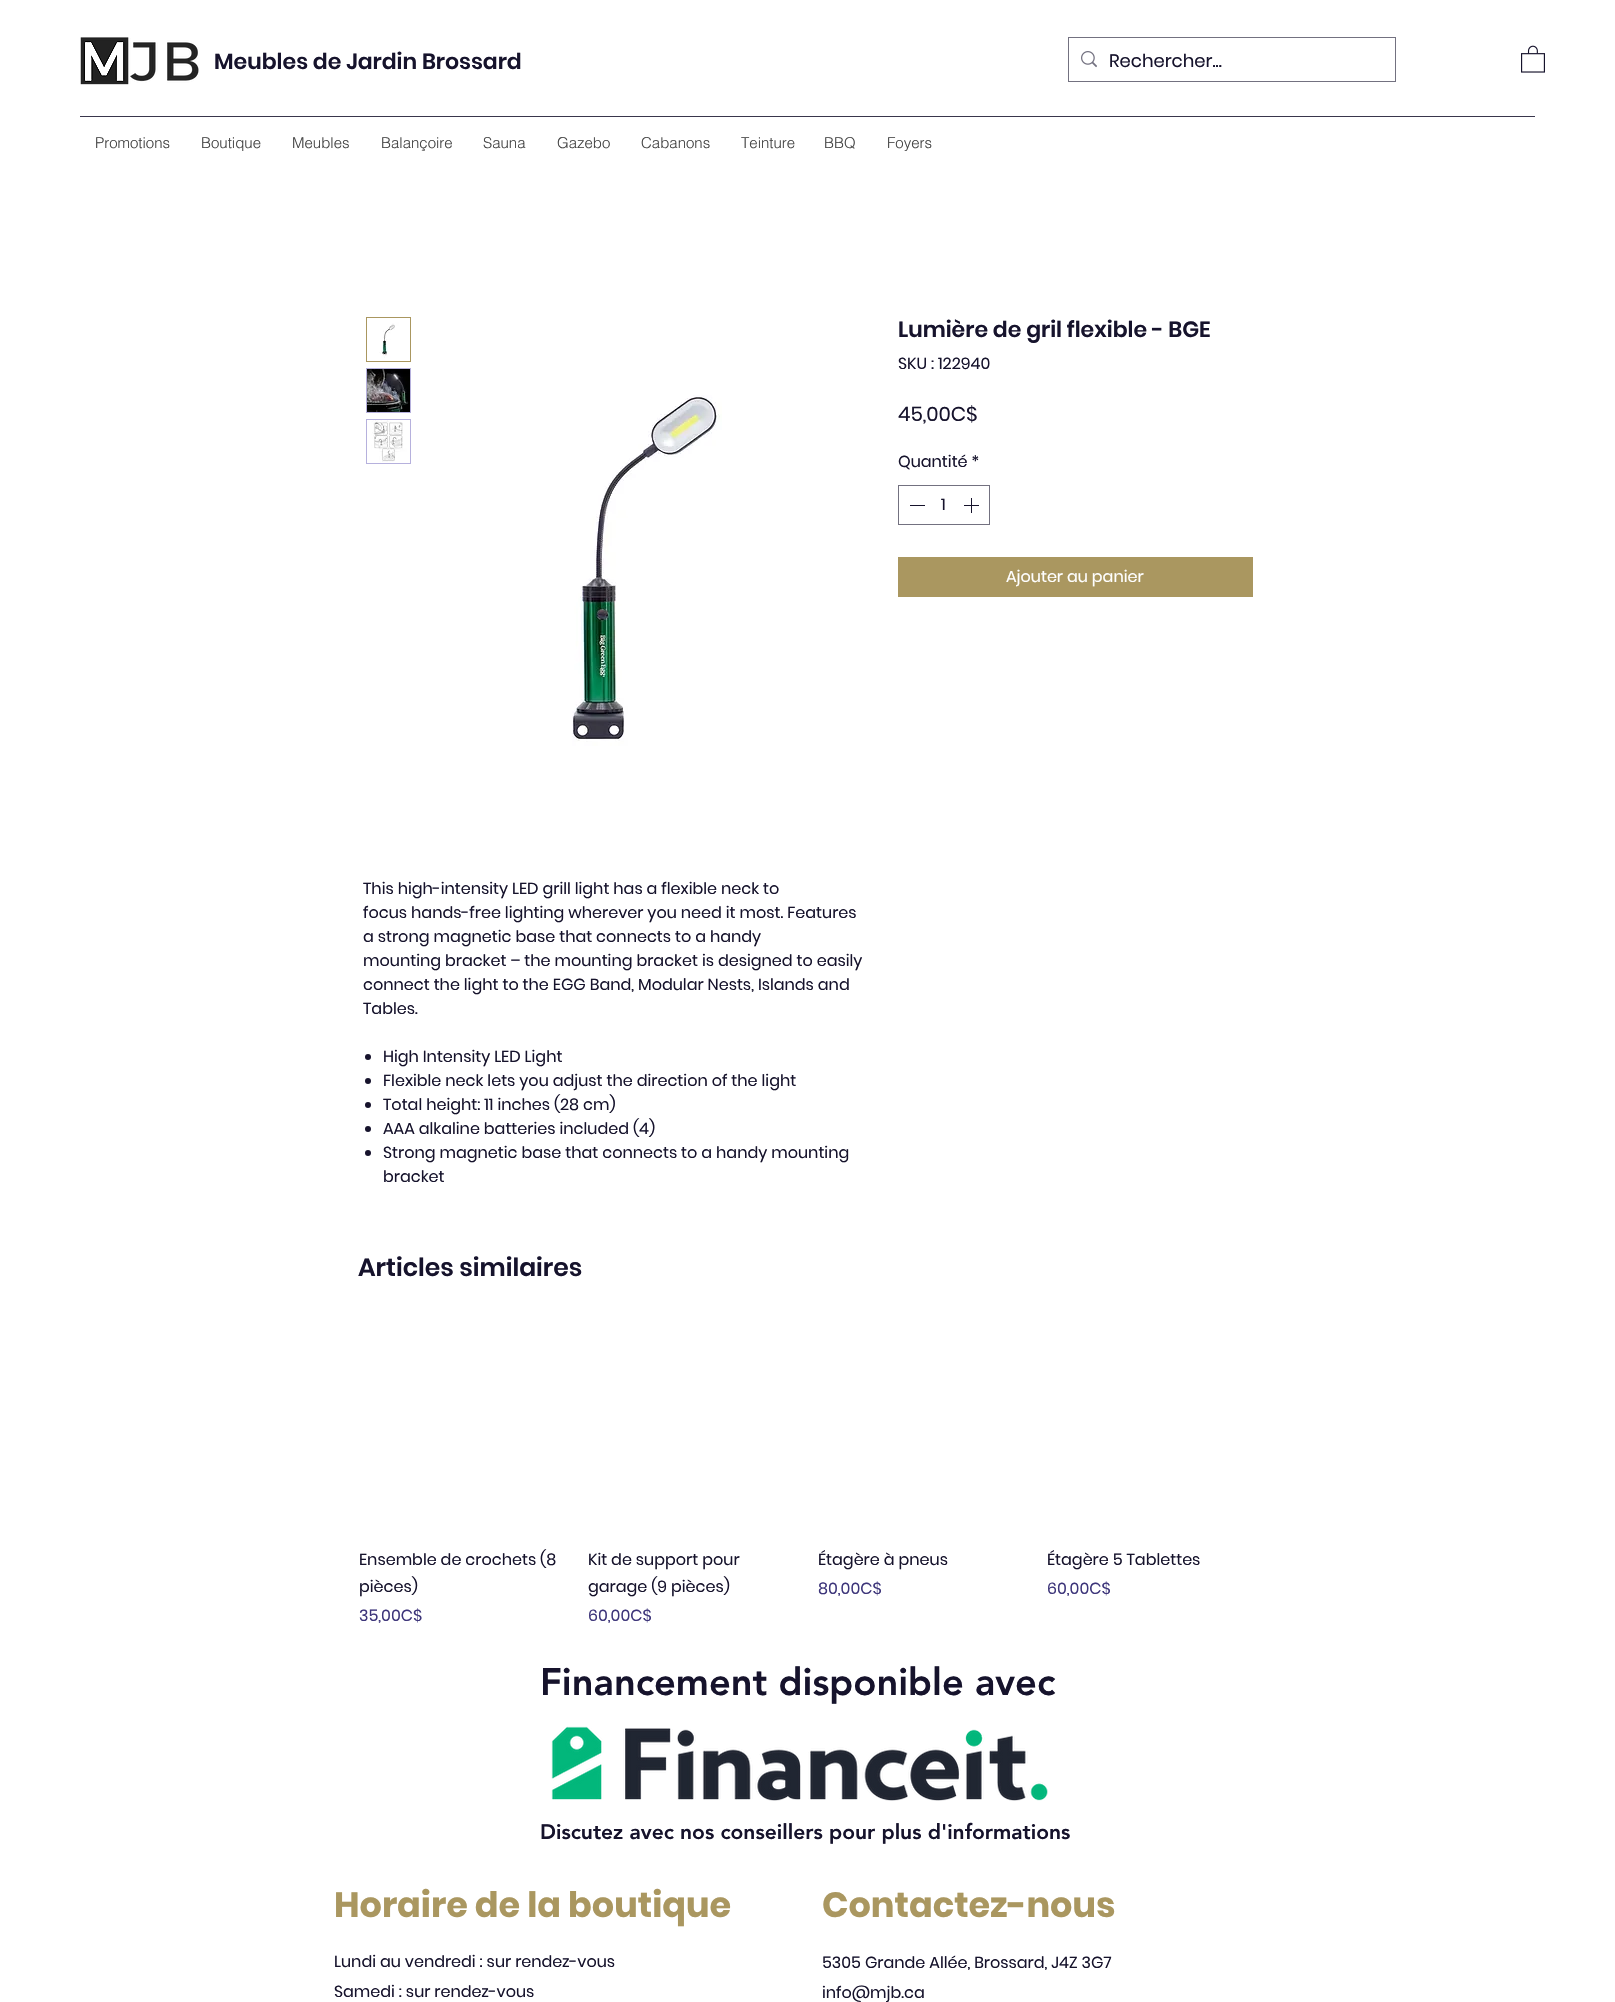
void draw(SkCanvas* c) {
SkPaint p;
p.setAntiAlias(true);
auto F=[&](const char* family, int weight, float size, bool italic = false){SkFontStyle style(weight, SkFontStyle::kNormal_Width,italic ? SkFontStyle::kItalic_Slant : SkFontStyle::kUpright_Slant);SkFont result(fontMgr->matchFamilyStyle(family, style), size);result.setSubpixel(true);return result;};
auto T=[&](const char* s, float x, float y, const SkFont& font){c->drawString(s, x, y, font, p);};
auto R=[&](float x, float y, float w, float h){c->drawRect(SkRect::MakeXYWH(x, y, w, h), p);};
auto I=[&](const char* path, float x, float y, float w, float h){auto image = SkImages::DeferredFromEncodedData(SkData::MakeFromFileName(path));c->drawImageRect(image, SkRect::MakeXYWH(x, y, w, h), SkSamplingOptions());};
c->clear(0xffffffff);
I("1.png",80,37,119,48);
auto f1 = F("Poppins",600,22);
p.setColor(0xff16132c);
T("Meubles de Jardin Brossard",214,69,f1);
p.setStroke(true);
p.setStrokeWidth(1);
p.setColor(0xff737180);
c->drawRect(SkRect::MakeXYWH(1068.5,37.5,327,44),p);
I("2.png",1081,51,16,17);
auto f2 = F("Poppins",400,18);
p.setStroke(false);
p.setColor(0xff16132c);
T("Rechercher...",1109,67,f2);
I("3.png",1521,45,24,28);
p.setColor(0xff39364c);
R(80,116,1455,1);
auto f3 = F("helvetica",300,15);
p.setColor(0xff444444);
T("Promotions",95,148,f3);
T("Boutique",201,148,f3);
T("Meubles",292,148,f3);
T("Balançoire",381,148,f3);
T("Sauna",483,148,f3);
T("Gazebo",557,148,f3);
T("Cabanons",641,148,f3);
T("Teinture",741,148,f3);
T("BBQ",824,148,f3);
T("Foyers",887,148,f3);
p.setColor(0xff16132c);
T("Lumière de gril flexible - BGE",898,337,f1);
auto f4 = F("Poppins",400,16);
T("SKU : 122940",898,369,f4);
auto f5 = F("Poppins",400,20);
T("45,00C$",898,421,f5);
T("Quantité *",898,467,f4);
p.setStroke(true);
p.setColor(0xff737180);
c->drawRect(SkRect::MakeXYWH(898.5,485.5,91,39),p);
p.setStroke(false);
p.setColor(0xff16132c);
R(910,505,15,1);
T("1",941,510,f4);
I("4.png",964,498,15,15);
p.setColor(0xffaa9760);
R(898,557,355,40);
p.setColor(0xffffffff);
T("Ajouter au panier",1006,582,f4);
p.setStroke(true);
p.setColor(0xffaa9760);
c->drawRect(SkRect::MakeXYWH(366.5,317.5,44,44),p);
I("5.png",367,318,43,43);
p.setStroke(false);
p.setColor(0xffb6b1dd);
R(366,368,45,45);
I("6.png",367,369,43,43);
R(366,419,45,45);
I("7.png",367,420,43,43);
I("8.png",572,395,150,351);
p.setColor(0xff16132c);
T("This high-intensity LED grill light has a flexible neck to",363,894,f4);
T("focus hands-free lighting wherever you need it most. Features",363,918,f4);
T("a strong magnetic base that connects to a handy",363,942,f4);
T("mounting bracket – the mounting bracket is designed to easily",363,966,f4);
T("connect the light to the EGG Band, Modular Nests, Islands and",363,990,f4);
T("Tables.",363,1014,f4);
c->drawCircle(368,1057,3,p);
T("High Intensity LED Light",383,1062,f4);
c->drawCircle(368,1081,3,p);
T("Flexible neck lets you adjust the direction of the light",383,1086,f4);
c->drawCircle(368,1105,3,p);
T("Total height: 11 inches (28 cm)",383,1110,f4);
c->drawCircle(368,1129,3,p);
T("AAA alkaline batteries included (4)",383,1134,f4);
c->drawCircle(368,1153,3,p);
T("Strong magnetic base that connects to a handy mounting",383,1158,f4);
T("bracket",383,1182,f4);
auto f6 = F("Poppins",600,25);
T("Articles similaires",358,1276,f6);
T("Ensemble de crochets (8",359,1565,f4);
T("pièces)",359,1592,f4);
p.setColor(0xff3d357a);
T("35,00C$",359,1621,f4);
p.setColor(0xff16132c);
T("Kit de support pour",588,1565,f4);
T("garage (9 pièces)",588,1592,f4);
p.setColor(0xff3d357a);
T("60,00C$",588,1621,f4);
p.setColor(0xff16132c);
T("Étagère à pneus",818,1565,f4);
p.setColor(0xff3d357a);
T("80,00C$",818,1594,f4);
p.setColor(0xff16132c);
T("Étagère 5 Tablettes",1047,1565,f4);
p.setColor(0xff3d357a);
T("60,00C$",1047,1594,f4);
auto f7 = F("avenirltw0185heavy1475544",900,38);
p.setColor(0xff16132c);
T("Financement disponible avec",540,1695,f7);
auto f8 = F("avenirltw0185heavy1475544",900,21);
T("Discutez avec nos conseillers pour plus d'informations",540,1839,f8);
I("9.png",551,1726,497,75);
auto f9 = F("Poppins",700,35);
p.setColor(0xffaa9760);
T("Horaire de la boutique",334,1917,f9);
T("Contactez-nous",822,1917,f9);
p.setColor(0xff16132c);
T("Lundi au vendredi : sur rendez-vous",334,1967,f4);
T("Samedi : sur rendez-vous",334,1997,f4);
T("5305 Grande Allée, Brossard, J4Z 3G7",822,1968,f4);
T("info@mjb.ca",822,1998,f4);
}
